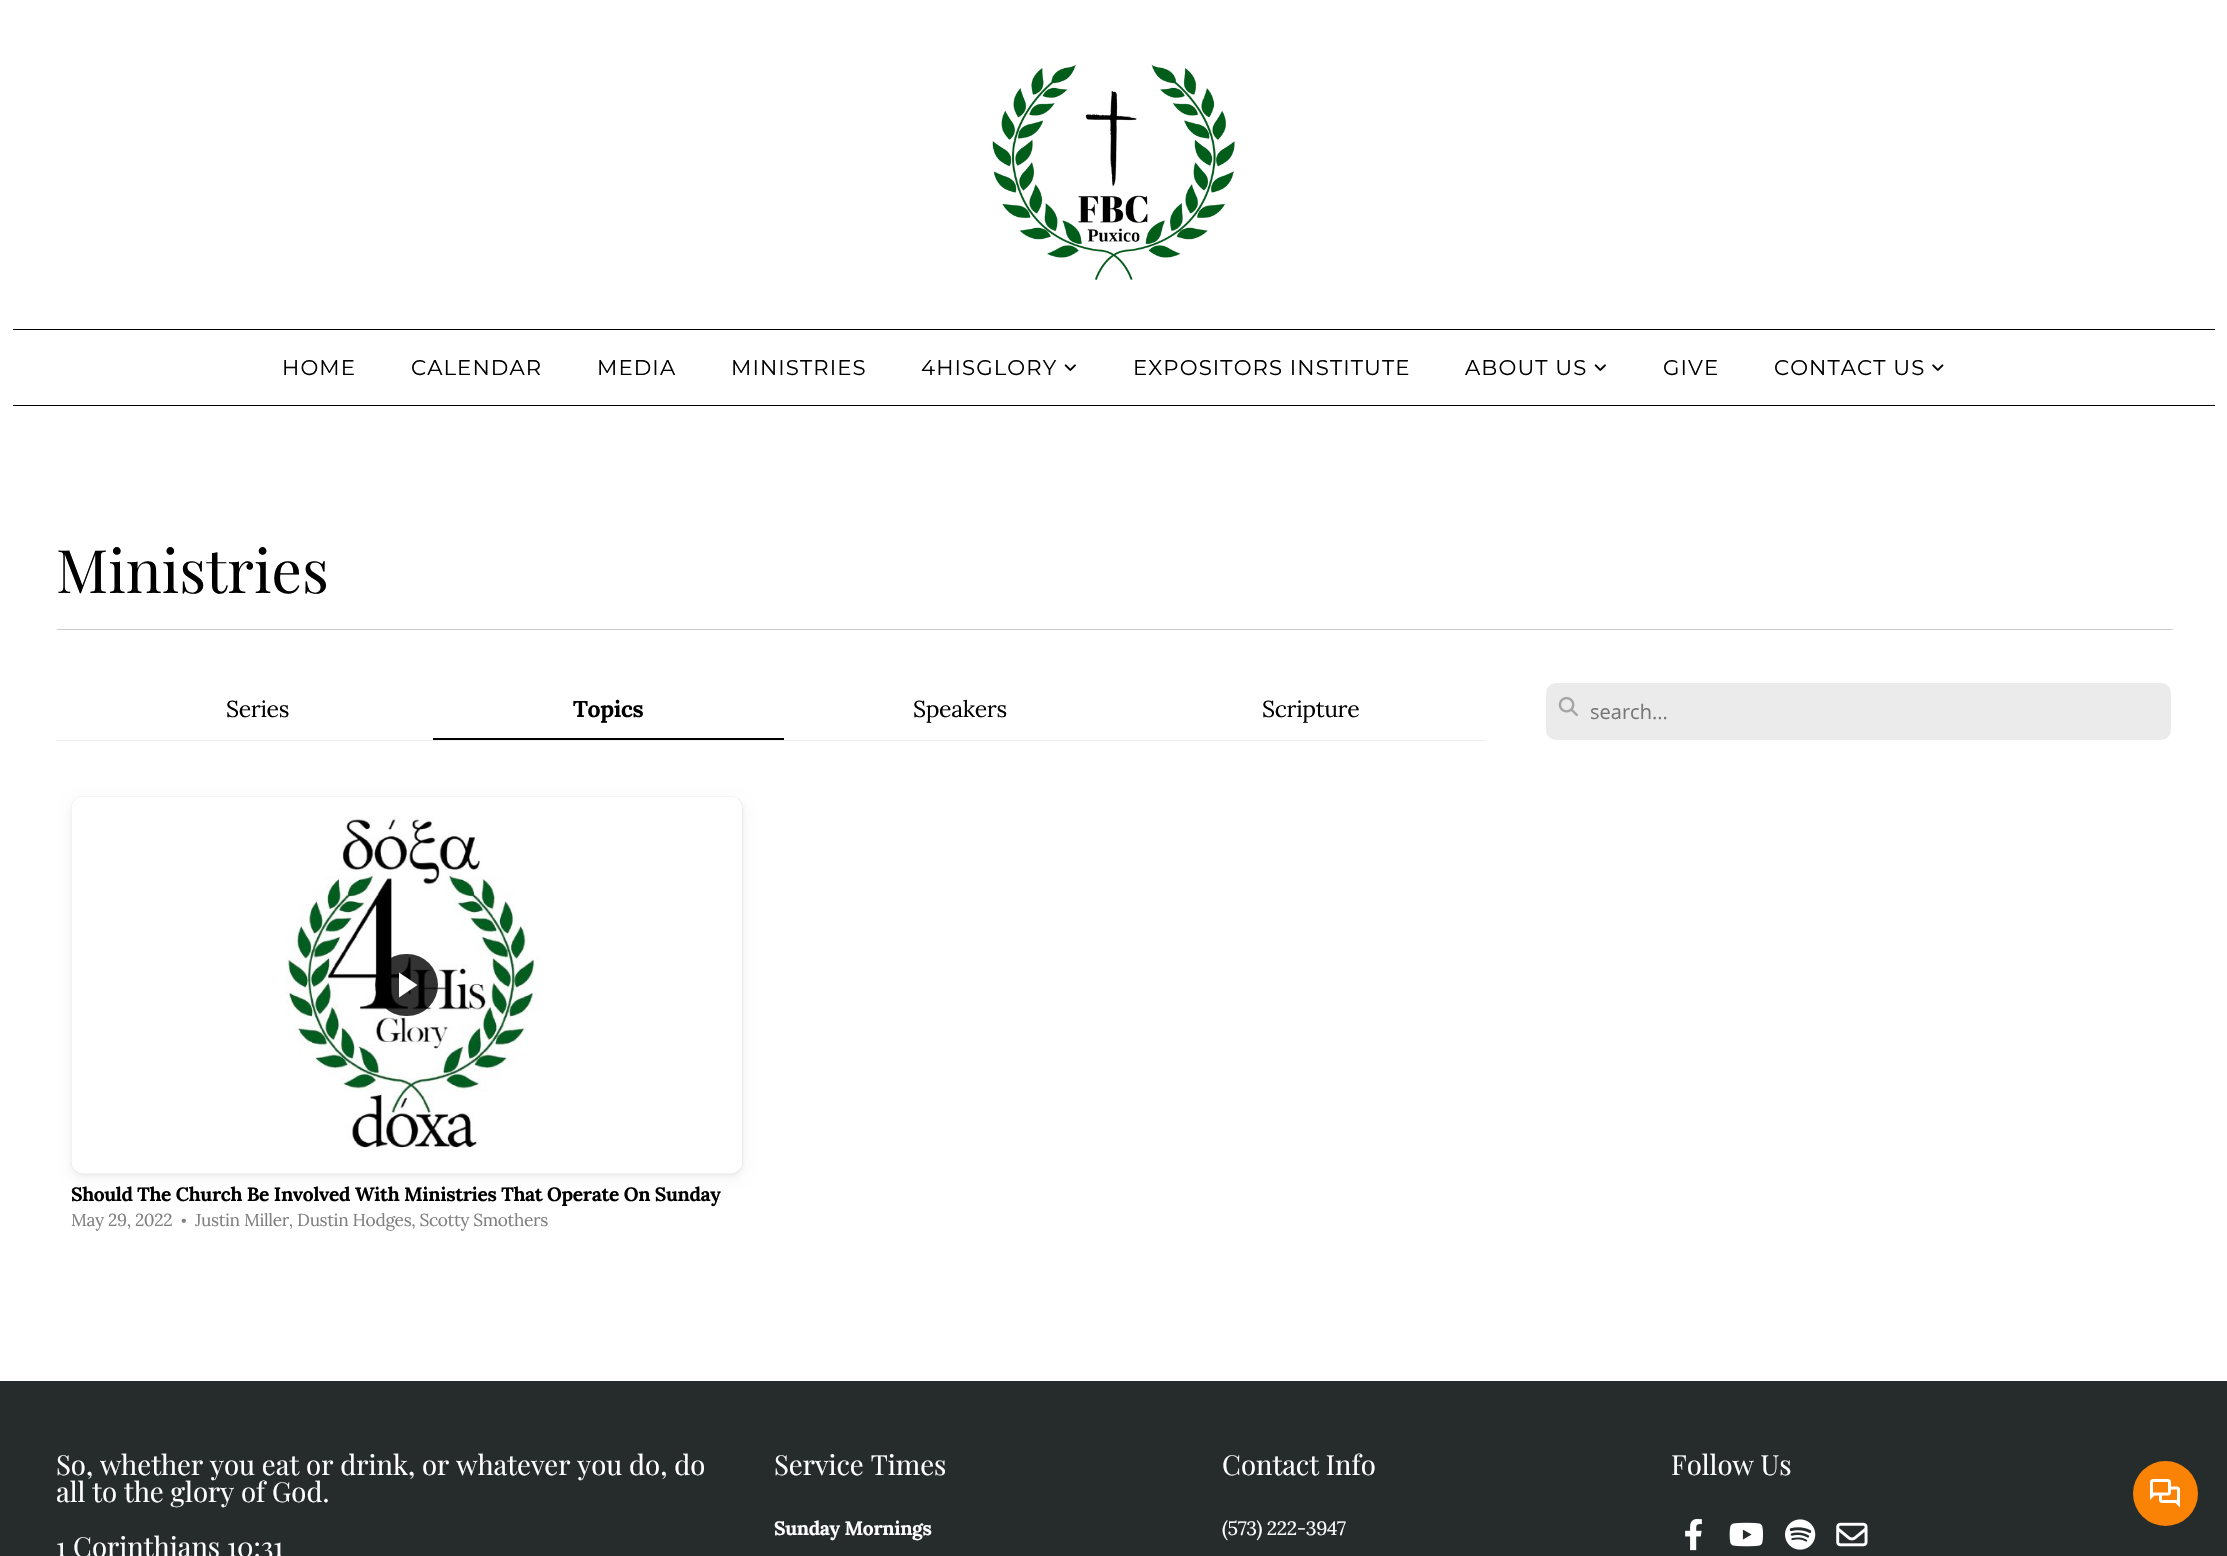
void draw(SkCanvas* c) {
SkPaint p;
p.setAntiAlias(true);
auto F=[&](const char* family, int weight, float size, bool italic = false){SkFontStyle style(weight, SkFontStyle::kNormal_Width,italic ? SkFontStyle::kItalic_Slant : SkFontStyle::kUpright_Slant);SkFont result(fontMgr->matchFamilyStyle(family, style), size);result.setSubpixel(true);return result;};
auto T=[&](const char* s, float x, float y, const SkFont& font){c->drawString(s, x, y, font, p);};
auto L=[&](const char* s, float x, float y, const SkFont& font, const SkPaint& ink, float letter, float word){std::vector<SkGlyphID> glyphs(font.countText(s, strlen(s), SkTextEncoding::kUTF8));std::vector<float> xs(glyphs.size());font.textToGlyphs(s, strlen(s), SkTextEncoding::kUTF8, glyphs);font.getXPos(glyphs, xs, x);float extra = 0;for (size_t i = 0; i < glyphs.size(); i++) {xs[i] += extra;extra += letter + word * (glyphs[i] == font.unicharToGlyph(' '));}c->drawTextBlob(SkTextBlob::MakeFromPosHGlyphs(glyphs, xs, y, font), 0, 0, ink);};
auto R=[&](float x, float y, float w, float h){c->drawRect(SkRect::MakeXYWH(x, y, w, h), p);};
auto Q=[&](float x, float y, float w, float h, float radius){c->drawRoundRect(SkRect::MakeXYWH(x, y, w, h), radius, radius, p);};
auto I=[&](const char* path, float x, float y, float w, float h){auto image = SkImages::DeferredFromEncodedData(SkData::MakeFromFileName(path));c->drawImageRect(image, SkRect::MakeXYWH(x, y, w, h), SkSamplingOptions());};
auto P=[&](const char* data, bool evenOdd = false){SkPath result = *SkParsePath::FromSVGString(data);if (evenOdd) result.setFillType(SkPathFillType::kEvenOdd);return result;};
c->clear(0xffffffff);
I("1.png",992,64,243,216);
p.setColor(0xff000000);
R(13,329,2202,1);
R(13,405,2202,1);
auto f1 = F("Montserrat",400,21.25);
L("HOME",282,375,f1,p,1.1,0);
L("CALENDAR",411,375,f1,p,1.1,0);
L("MEDIA",597,375,f1,p,1.1,0);
L("MINISTRIES",731,375,f1,p,1.1,0);
L("4HISGLORY",921,375,f1,p,1.1,0);
I("2.png",1064,364,12,7);
L("EXPOSITORS INSTITUTE",1133,375,f1,p,1.1,0);
L("ABOUT US",1465,375,f1,p,1.1,0);
I("2.png",1594,364,12,7);
L("GIVE",1663,375,f1,p,1.1,0);
L("CONTACT US",1774,375,f1,p,1.1,0);
I("3.png",1932,364,12,7);
auto f2 = F("Playfair Display",400,60);
T("Ministries",56,593,f2);
p.setColor(0xffcccccc);
c->drawPath(P("M2174 630h-2118l2-1h2114z"),p);
p.setColor(0xffedeef0);
R(56,740,1430,1);
auto f3 = F("Lora",400,23);
p.setColor(0xff000000);
L("Series",226,717,f3,p,-.35,0);
R(433,738,351,2);
auto f4 = F("Lora",700,23);
L("Topics",573,717,f4,p,-.35,0);
L("Speakers",913,717,f3,p,-.35,0);
L("Scripture",1262,717,f3,p,-.35,0);
p.setColor(0xffebebeb);
Q(1546,683,625,57,10);
I("4.png",1558,697,20,20);
auto f5 = F("Open Sans",400,20);
p.setColor(0xff767676);
T("search...",1590,719,f5);
p.setColor(0x0a000000);
p.setMaskFilter(SkMaskFilter::MakeBlur(kNormal_SkBlurStyle, 1));
c->drawRoundRect(SkRect::MakeXYWH(71,798,672,377),13,13,p);
p.setMaskFilter(nullptr);
p.setColor(0x0f000000);
p.setMaskFilter(SkMaskFilter::MakeBlur(kNormal_SkBlurStyle, 6));
c->drawRoundRect(SkRect::MakeXYWH(71,800,672,378),13,13,p);
p.setMaskFilter(nullptr);
p.setColor(0xffe1e7e3);
Q(71,796,672,378,13);
I("5.png",71,796,672,378);
p.setColor(0xcc000000);
Q(375,954,63,62,31);
p.setColor(0xffffffff);
c->drawPath(P("M399 997.5v-25l18.5 12.5z"),p);
auto f6 = F("Lora",700,19.25);
p.setColor(0xff000000);
L("Should The Church Be Involved With Ministries That Operate On Sunday",71,1201,f6,p,-.35,0);
auto f7 = F("Lora",400,17.3);
p.setColor(0xff808080);
L("May 29, 2022",71,1226,f7,p,-.35,0);
auto f8 = F("Lora",400,14);
L("•",181,1226,f8,p,-.35,0);
L("Justin Miller, Dustin Hodges, Scotty Smothers",195,1226,f7,p,-.35,0);
p.setColor(0xff262b2c);
R(0,1381,2227,175);
auto f9 = F("Playfair Display",400,27.5);
p.setColor(0xffffffff);
T("So, whether you eat or drink, or whatever you do, do",56,1475,f9);
T("all to the glory of God.",56,1502,f9);
T("1 Corinthians 10:31",56,1557,f9);
T("Service Times",774,1475,f9);
L("Sunday Mornings",774,1535,f6,p,-.35,0);
T("Contact Info",1222,1475,f9);
auto f10 = F("Lora",400,19.25);
L("(573) 222-3947",1222,1535,f10,p,-.35,0);
T("Follow Us",1671,1475,f9);
I("6.png",1685,1518,17,33);
I("7.png",1729,1522,34,25);
I("8.png",1785,1519,31,31);
I("9.png",1836,1522,32,25);
p.setColor(0xfffa8204);
c->drawCircle(2165.5,1493.5,32.5,p);
I("10.png",2150,1479,30,29);
}
